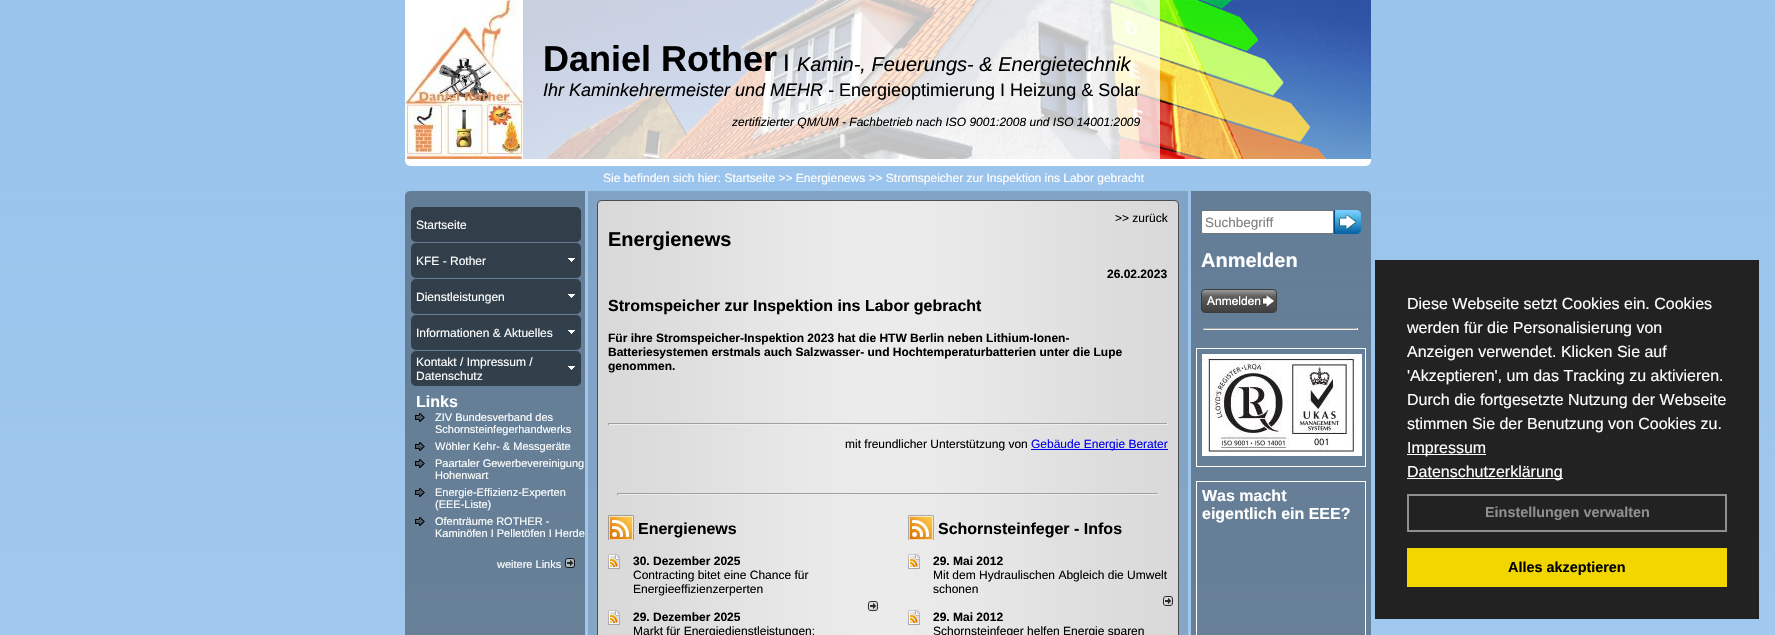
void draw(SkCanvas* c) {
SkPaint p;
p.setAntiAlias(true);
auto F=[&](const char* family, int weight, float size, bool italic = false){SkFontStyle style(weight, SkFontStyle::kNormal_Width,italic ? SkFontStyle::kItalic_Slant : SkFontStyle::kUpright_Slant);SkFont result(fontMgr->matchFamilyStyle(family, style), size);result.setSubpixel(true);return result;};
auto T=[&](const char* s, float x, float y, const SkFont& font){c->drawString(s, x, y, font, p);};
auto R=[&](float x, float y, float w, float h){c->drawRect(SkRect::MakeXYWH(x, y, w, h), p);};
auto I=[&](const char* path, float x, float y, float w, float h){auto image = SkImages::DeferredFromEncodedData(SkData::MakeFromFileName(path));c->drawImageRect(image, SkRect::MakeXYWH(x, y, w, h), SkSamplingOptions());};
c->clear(0xffffffff);
I("1.png",0,0,1775,635);
I("2.png",523,0,848,159);
I("3.png",405,0,118,159);
p.setColor(0xbfffffff);
R(523,0,637,159);
auto f1 = F("Liberation Sans",700,36);
p.setColor(0xff000000);
T("Daniel Rother",543,71,f1);
auto f2 = F("Liberation Sans",400,24);
T("I",783,71,f2);
auto f3 = F("Liberation Sans",400,20,true);
T("Kamin-, Feuerungs- & Energietechnik",797,71,f3);
auto f4 = F("Liberation Sans",400,18,true);
T("Ihr Kaminkehrermeister und MEHR -",543,96,f4);
auto f5 = F("Liberation Sans",400,18);
T("Energieoptimierung I Heizung & Solar",839,96,f5);
auto f6 = F("Liberation Sans",400,12,true);
T("zertifizierter QM/UM - Fachbetrieb nach ISO 9001:2008 und ISO 14001:2009",732,126,f6);
I("4.png",405,159,966,7);
auto f7 = F("Liberation Sans",400,12);
p.setColor(0xffffffff);
T("Sie befinden sich hier: Startseite >> Energienews >> Stromspeicher zur Inspektion ins Labor gebracht",603,182,f7);
I("5.png",405,191,180,15);
I("6.png",588,191,600,15);
I("7.png",1191,191,180,15);
p.setColor(0x5c000000);
R(405,206,180,429);
I("8.png",411,207,170,35);
p.setColor(0xffffffff);
T("Startseite",416,229,f7);
I("9.png",411,243,170,35);
T("KFE - Rother",416,265,f7);
I("10.png",568,258,7,4);
I("11.png",411,279,170,35);
T("Dienstleistungen",416,301,f7);
I("12.png",568,294,7,4);
I("13.png",411,315,170,35);
T("Informationen & Aktuelles",416,337,f7);
I("14.png",568,330,7,4);
I("15.png",411,351,170,35);
T("Kontakt / Impressum /",416,366,f7);
T("Datenschutz",416,380,f7);
I("14.png",568,366,7,4);
auto f8 = F("Liberation Sans",700,16);
T("Links",416,407,f8);
I("16.png",415,413,10,9);
auto f9 = F("Liberation Sans",400,11);
T("ZIV Bundesverband des",435,421,f9);
T("Schornsteinfegerhandwerks",435,433,f9);
I("17.png",415,442,10,9);
T("Wöhler Kehr- & Messgeräte",435,450,f9);
I("18.png",415,459,10,9);
T("Paartaler Gewerbevereinigung",435,467,f9);
T("Hohenwart",435,479,f9);
I("19.png",415,488,10,9);
T("Energie-Effizienz-Experten",435,496,f9);
T("(EEE-Liste)",435,508,f9);
I("20.png",415,517,10,9);
T("Ofenträume ROTHER -",435,525,f9);
T("Kaminöfen I Pelletöfen I Herde",435,537,f9);
T("weitere Links",497,568,f9);
I("21.png",565,558,10,10);
I("22.png",588,206,600,429);
p.setColor(0xff000000);
T(">> zurück",1115,222,f7);
auto f10 = F("Liberation Sans",700,20);
T("Energienews",608,246,f10);
auto f11 = F("Liberation Sans",700,12);
T("26.02.2023",1107,278,f11);
T("Stromspeicher zur Inspektion ins Labor gebracht",608,311,f8);
T("Für ihre Stromspeicher-Inspektion 2023 hat die HTW Berlin neben Lithium-Ionen-",608,342,f11);
T("Batteriesystemen erstmals auch Salzwasser- und Hochtemperaturbatterien unter die Lupe",608,356,f11);
T("genommen.",608,370,f11);
p.setColor(0xff9f9f9f);
R(608,423,560,1);
p.setColor(0xffeeeeee);
R(1167,423,1,2);
R(608,424,560,1);
p.setColor(0xff9f9f9f);
R(608,423,1,2);
p.setColor(0xff000000);
T("mit freundlicher Unterstützung von",845,448,f7);
p.setColor(0xff0000ee);
R(1031,449,137,1);
T("Gebäude Energie Berater",1031,448,f7);
p.setColor(0xff9f9f9f);
R(617,493,542,1);
p.setColor(0xffeeeeee);
R(1158,493,1,2);
R(617,494,542,1);
p.setColor(0xff9f9f9f);
R(617,493,1,2);
I("23.png",608,515,26,25);
p.setColor(0xff000000);
T("Energienews",638,534,f8);
I("24.png",608,554,12,15);
T("30. Dezember 2025",633,565,f11);
T("Contracting bitet eine Chance für",633,579,f7);
T("Energieeffizienzerperten",633,593,f7);
I("25.png",868,601,10,10);
I("24.png",608,610,12,15);
T("29. Dezember 2025",633,621,f11);
T("Markt für Energiedienstleistungen:",633,635,f7);
I("26.png",908,515,26,25);
T("Schornsteinfeger - Infos",938,534,f8);
I("27.png",908,554,12,15);
T("29. Mai 2012",933,565,f11);
T("Mit dem Hydraulischen Abgleich die Umwelt",933,579,f7);
T("schonen",933,593,f7);
I("28.png",1163,596,10,10);
I("27.png",908,610,12,15);
T("29. Mai 2012",933,621,f11);
T("Schornsteinfeger helfen Energie sparen",933,635,f7);
p.setColor(0x5c000000);
R(1191,206,180,429);
p.setColor(0xffffffff);
c->drawRoundRect(SkRect::MakeXYWH(1201.5,210.5,132,23),1.5,1.5,p);
p.setStroke(true);
p.setStrokeWidth(1);
p.setColor(0xff767676);
c->drawRoundRect(SkRect::MakeXYWH(1201.5,210.5,132,23),1.5,1.5,p);
auto f12 = F("Liberation Sans",400,13.5);
p.setStroke(false);
p.setColor(0xff808080);
T("Suchbegriff",1205,227,f12);
I("29.png",1334,210,27,24);
p.setColor(0xffffffff);
T("Anmelden",1201,267,f10);
I("30.png",1201,289,76,24);
p.setColor(0xff9f9f9f);
R(1203,328,155,1);
p.setColor(0xffeeeeee);
R(1357,328,1,2);
R(1203,329,155,1);
p.setColor(0xff9f9f9f);
R(1203,328,1,2);
p.setStroke(true);
p.setColor(0xffffffff);
c->drawRect(SkRect::MakeXYWH(1196.5,348.5,169,118),p);
I("31.png",1202,354,160,102);
c->drawRect(SkRect::MakeXYWH(1196.5,481.5,169,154),p);
p.setStroke(false);
T("Was macht",1202,501,f8);
T("eigentlich ein EEE?",1202,519,f8);
p.setColor(0xff222222);
R(1375,260,384,359);
auto f13 = F("Liberation Sans",400,16);
p.setColor(0xffffffff);
T("Diese Webseite setzt Cookies ein. Cookies",1407,309,f13);
T("werden für die Personalisierung von",1407,333,f13);
T("Anzeigen verwendet. Klicken Sie auf",1407,357,f13);
T("'Akzeptieren', um das Tracking zu aktivieren.",1407,381,f13);
T("Durch die fortgesetzte Nutzung der Webseite",1407,405,f13);
T("stimmen Sie der Benutzung von Cookies zu.",1407,429,f13);
R(1407,454,79,1);
T("Impressum",1407,453,f13);
R(1407,478,156,1);
T("Datenschutzerklärung",1407,477,f13);
p.setStroke(true);
p.setStrokeWidth(2);
p.setColor(0xff8f8f8f);
c->drawRect(SkRect::MakeXYWH(1408,495,318,36),p);
auto f14 = F("Liberation Sans",700,14.4);
p.setStroke(false);
T("Einstellungen verwalten",1485,517,f14);
p.setColor(0xfff1d600);
R(1407,548,320,39);
p.setColor(0xff000000);
T("Alles akzeptieren",1508,572,f14);
}
